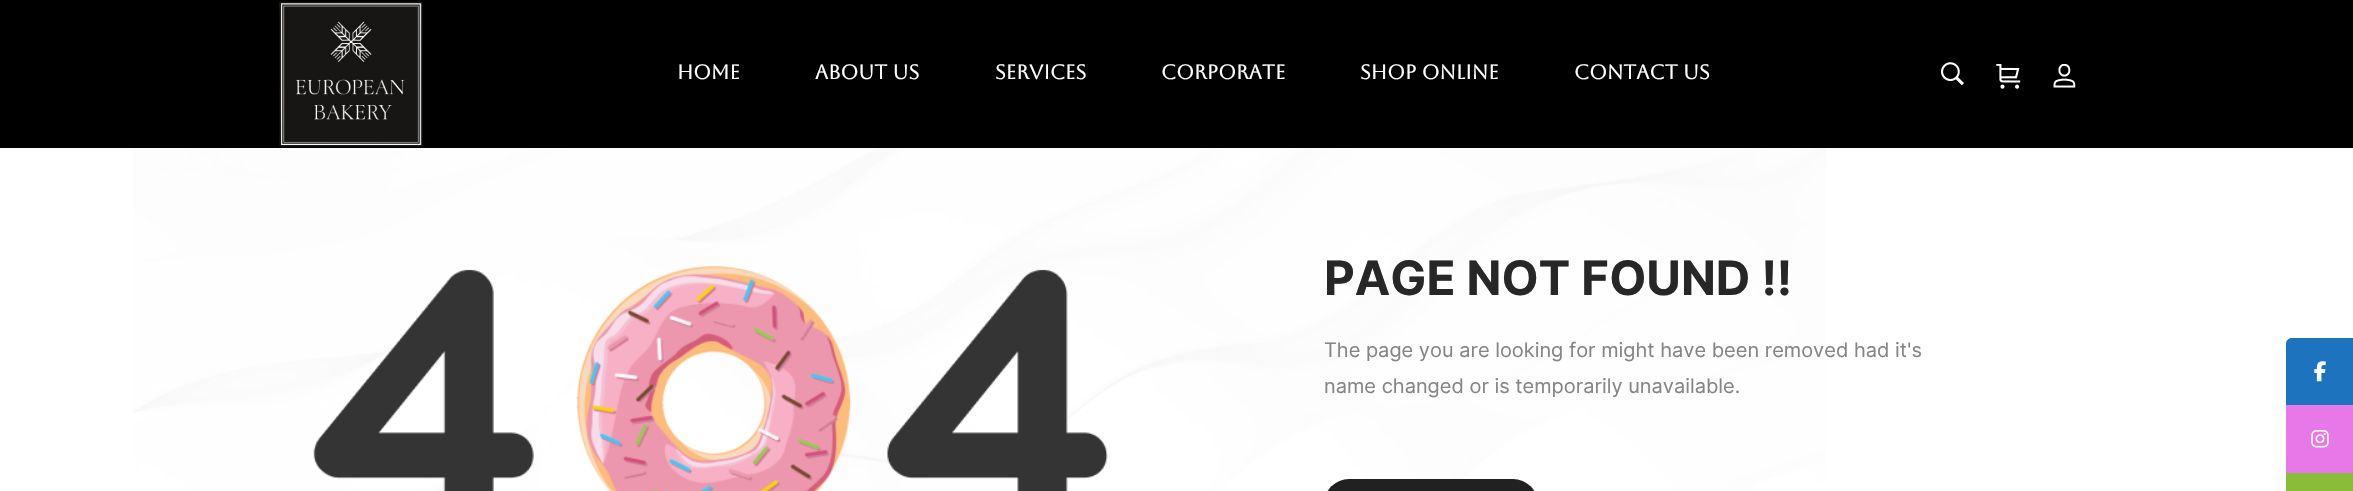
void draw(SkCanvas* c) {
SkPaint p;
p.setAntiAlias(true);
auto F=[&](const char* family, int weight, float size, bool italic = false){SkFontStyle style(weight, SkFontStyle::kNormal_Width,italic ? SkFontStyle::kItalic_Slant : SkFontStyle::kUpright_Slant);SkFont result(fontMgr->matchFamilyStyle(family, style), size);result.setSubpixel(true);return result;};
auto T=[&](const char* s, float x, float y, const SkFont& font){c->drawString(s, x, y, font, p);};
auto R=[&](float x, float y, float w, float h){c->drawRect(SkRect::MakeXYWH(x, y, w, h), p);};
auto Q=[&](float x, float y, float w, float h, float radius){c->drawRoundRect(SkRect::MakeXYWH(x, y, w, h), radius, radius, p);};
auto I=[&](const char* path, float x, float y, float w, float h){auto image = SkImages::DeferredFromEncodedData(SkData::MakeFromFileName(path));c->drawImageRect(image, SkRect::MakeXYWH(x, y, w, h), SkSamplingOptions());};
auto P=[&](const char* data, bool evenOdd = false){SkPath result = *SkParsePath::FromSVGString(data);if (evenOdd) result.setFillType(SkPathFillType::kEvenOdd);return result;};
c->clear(0xffffffff);
p.setColor(0xff000000);
R(0,0,2353,148);
I("1.png",279,1,144,146);
auto f1 = F("Aboreto",700,20);
p.setColor(0xffffffff);
T("Home",677,79,f1);
T("About Us",815,79,f1);
T("Services",995,79,f1);
T("Corporate",1161,79,f1);
T("Shop Online",1360,79,f1);
T("Contact Us",1574,79,f1);
I("2.png",1941,62,23,24);
I("3.png",1996,64,25,25);
I("4.png",2053,64,23,24);
I("5.png",133,148,1693,343);
I("6.png",313,266,795,225);
auto f2 = F("Inter",700,47.5);
p.setColor(0xff272727);
T("PAGE NOT FOUND !!",1324,295,f2);
auto f3 = F("Inter",400,20);
p.setColor(0xff858585);
T("The page you are looking for might have been removed had it's",1324,357,f3);
T("name changed or is temporarily unavailable.",1324,393,f3);
p.setColor(0xff212121);
Q(1324,479,214,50,37.5);
p.setColor(0xff1e73be);
c->drawPath(P("M2292 338h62v67h-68v-61c0-3.5 2.5-6 6-6z"),p);
I("7.png",2314,361,12,21);
p.setColor(0xffe878e8);
R(2286,405,67,68);
I("8.png",2311,430,18,18);
p.setColor(0xff8abc3a);
R(2286,473,67,18);
}
